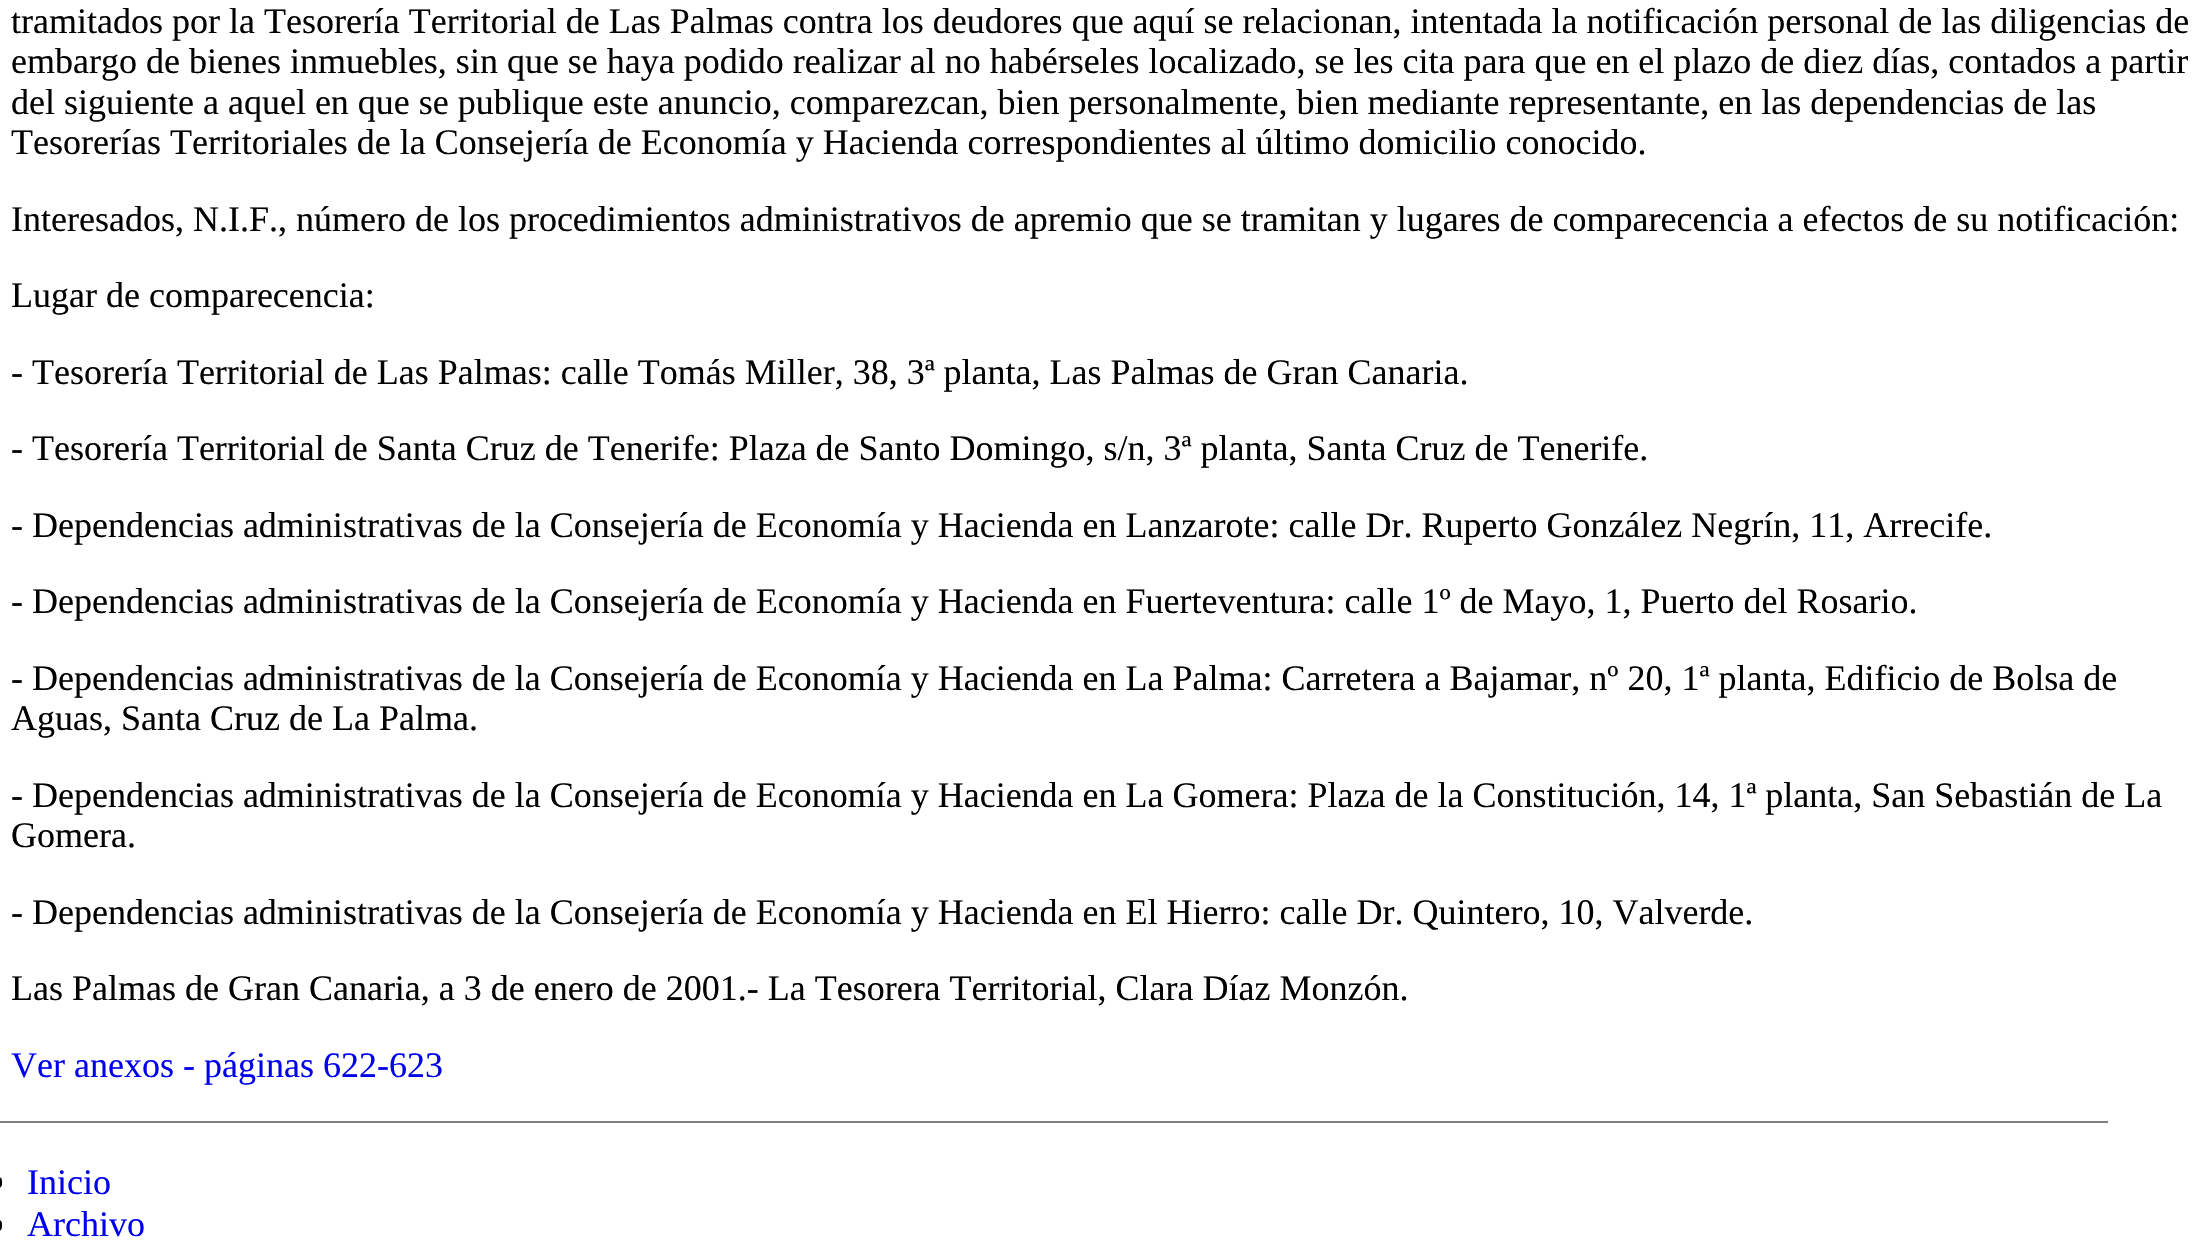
void draw(SkCanvas* c) {
SkPaint p;
p.setAntiAlias(true);
auto F=[&](const char* family, int weight, float size, bool italic = false){SkFontStyle style(weight, SkFontStyle::kNormal_Width,italic ? SkFontStyle::kItalic_Slant : SkFontStyle::kUpright_Slant);SkFont result(fontMgr->matchFamilyStyle(family, style), size);result.setSubpixel(true);return result;};
auto T=[&](const char* s, float x, float y, const SkFont& font){c->drawString(s, x, y, font, p);};
auto R=[&](float x, float y, float w, float h){c->drawRect(SkRect::MakeXYWH(x, y, w, h), p);};
auto Q=[&](float x, float y, float w, float h, float radius){c->drawRoundRect(SkRect::MakeXYWH(x, y, w, h), radius, radius, p);};
c->clear(0xffffffff);
auto f1 = F("Liberation Serif",400,36);
p.setColor(0xff000000);
T("tramitados por la Tesorería Territorial de Las Palmas contra los deudores que aquí se relacionan, intentada la notificación personal de las diligencias de",11,33,f1);
T("embargo de bienes inmuebles, sin que se haya podido realizar al no habérseles localizado, se les cita para que en el plazo de diez días, contados a partir",11,73,f1);
T("del siguiente a aquel en que se publique este anuncio, comparezcan, bien personalmente, bien mediante representante, en las dependencias de las",11,114,f1);
T("Tesorerías Territoriales de la Consejería de Economía y Hacienda correspondientes al último domicilio conocido.",11,154,f1);
T("Interesados, N.I.F., número de los procedimientos administrativos de apremio que se tramitan y lugares de comparecencia a efectos de su notificación:",11,231,f1);
T("Lugar de comparecencia:",11,307,f1);
T("- Tesorería Territorial de Las Palmas: calle Tomás Miller, 38, 3ª planta, Las Palmas de Gran Canaria.",11,384,f1);
T("- Tesorería Territorial de Santa Cruz de Tenerife: Plaza de Santo Domingo, s/n, 3ª planta, Santa Cruz de Tenerife.",11,460,f1);
T("- Dependencias administrativas de la Consejería de Economía y Hacienda en Lanzarote: calle Dr. Ruperto González Negrín, 11, Arrecife.",11,537,f1);
T("- Dependencias administrativas de la Consejería de Economía y Hacienda en Fuerteventura: calle 1º de Mayo, 1, Puerto del Rosario.",11,613,f1);
T("- Dependencias administrativas de la Consejería de Economía y Hacienda en La Palma: Carretera a Bajamar, nº 20, 1ª planta, Edificio de Bolsa de",11,690,f1);
T("Aguas, Santa Cruz de La Palma.",11,730,f1);
T("- Dependencias administrativas de la Consejería de Economía y Hacienda en La Gomera: Plaza de la Constitución, 14, 1ª planta, San Sebastián de La",11,807,f1);
T("Gomera.",11,847,f1);
T("- Dependencias administrativas de la Consejería de Economía y Hacienda en El Hierro: calle Dr. Quintero, 10, Valverde.",11,924,f1);
T("Las Palmas de Gran Canaria, a 3 de enero de 2001.- La Tesorera Territorial, Clara Díaz Monzón.",11,1000,f1);
p.setColor(0xff0000ee);
T("Ver anexos - páginas 622-623",11,1077,f1);
p.setColor(0xff808080);
R(0,1121,2108,2);
p.setColor(0xff000000);
Q(-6,1177,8,11,5.5);
p.setColor(0xff0000ee);
T("Inicio",27,1194,f1);
p.setColor(0xff000000);
Q(-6,1220,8,11,5.5);
p.setColor(0xff0000ee);
T("Archivo",27,1236,f1);
}
